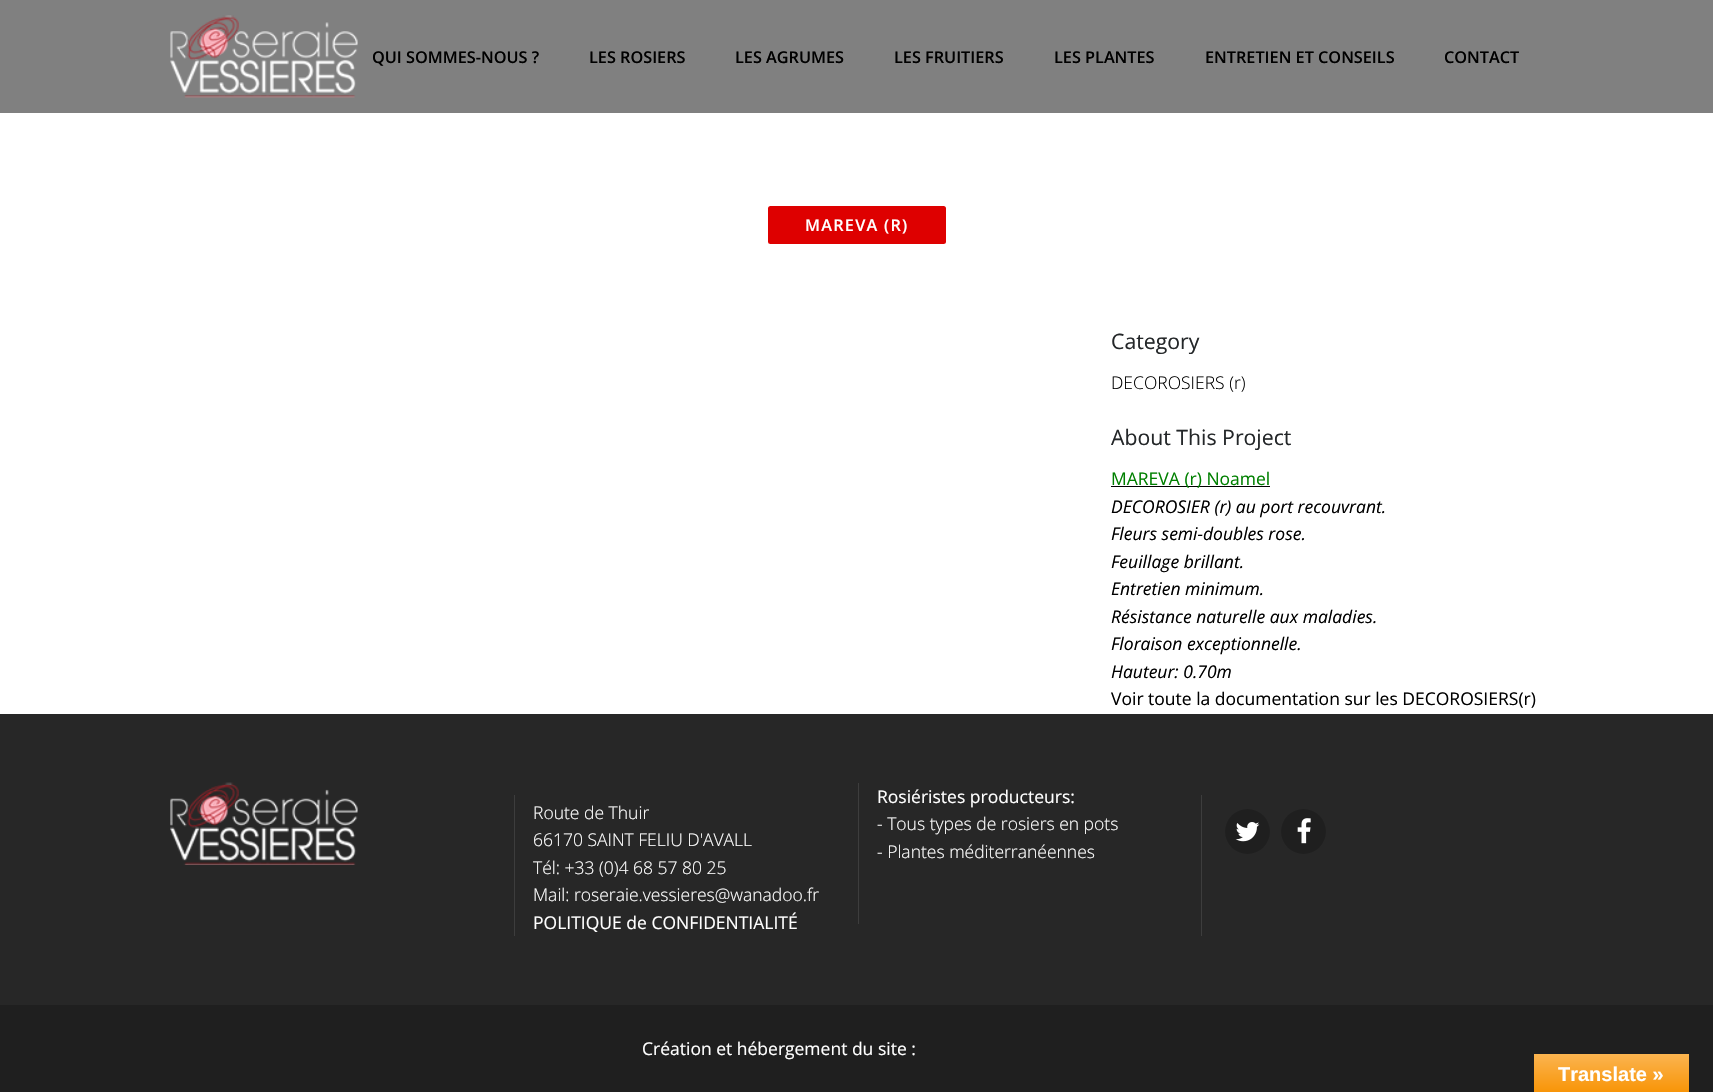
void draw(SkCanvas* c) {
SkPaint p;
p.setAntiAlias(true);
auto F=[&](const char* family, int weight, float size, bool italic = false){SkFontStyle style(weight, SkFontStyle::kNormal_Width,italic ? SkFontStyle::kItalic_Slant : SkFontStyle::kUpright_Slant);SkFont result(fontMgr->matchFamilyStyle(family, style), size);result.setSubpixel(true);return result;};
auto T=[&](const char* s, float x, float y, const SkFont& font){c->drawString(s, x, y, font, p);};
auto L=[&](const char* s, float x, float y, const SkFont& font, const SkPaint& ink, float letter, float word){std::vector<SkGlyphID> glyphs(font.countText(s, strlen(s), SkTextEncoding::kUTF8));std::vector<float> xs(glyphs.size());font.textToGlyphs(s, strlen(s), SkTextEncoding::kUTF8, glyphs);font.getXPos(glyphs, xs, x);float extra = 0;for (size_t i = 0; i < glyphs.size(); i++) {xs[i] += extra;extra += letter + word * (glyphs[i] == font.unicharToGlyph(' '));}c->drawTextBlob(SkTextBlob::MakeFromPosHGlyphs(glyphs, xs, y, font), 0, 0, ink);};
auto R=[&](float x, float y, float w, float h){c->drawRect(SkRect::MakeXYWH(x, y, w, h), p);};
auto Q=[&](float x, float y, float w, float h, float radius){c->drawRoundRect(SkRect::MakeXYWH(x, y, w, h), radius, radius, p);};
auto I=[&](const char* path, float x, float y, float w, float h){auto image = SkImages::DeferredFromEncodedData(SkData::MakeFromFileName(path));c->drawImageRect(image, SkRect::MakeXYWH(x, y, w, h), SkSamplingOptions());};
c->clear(0xffffffff);
p.setColor(0xff808080);
R(0,0,1713,113);
I("1.png",170,15,188,83);
auto f1 = F("Open Sans",600,16.25);
p.setColor(0xff000000);
T("QUI SOMMES-NOUS ?",372,63,f1);
T("LES ROSIERS",589,63,f1);
T("LES AGRUMES",735,63,f1);
T("LES FRUITIERS",894,63,f1);
T("LES PLANTES",1054,63,f1);
T("ENTRETIEN ET CONSEILS",1205,63,f1);
T("CONTACT",1444,63,f1);
p.setColor(0xffde0000);
Q(768,206,178,38,2.5);
p.setColor(0xffffffff);
L("MAREVA (R)",805,231,f1,p,1.25,0);
auto f2 = F("Open Sans",400,21.25);
p.setColor(0xff242729);
T("Category",1111,349,f2);
auto f3 = F("Open Sans",300,17.5);
p.setColor(0xff000000);
T("DECOROSIERS (r)",1111,389,f3);
p.setColor(0xff242729);
T("About This Project",1111,445,f2);
p.setColor(0xff000000);
R(1111,486,159,1);
auto f4 = F("Open Sans",400,17.5);
p.setColor(0xff008000);
T("MAREVA (r) Noamel",1111,485,f4);
auto f5 = F("Open Sans",400,17.5,true);
p.setColor(0xff000000);
T("DECOROSIER (r) au port recouvrant.",1111,513,f5);
T("Fleurs semi-doubles rose.",1111,540,f5);
T("Feuillage brillant.",1111,568,f5);
T("Entretien minimum.",1111,595,f5);
T("Résistance naturelle aux maladies.",1111,623,f5);
T("Floraison exceptionnelle.",1111,650,f5);
T("Hauteur: 0.70m",1111,678,f5);
T("Voir toute la documentation sur les DECOROSIERS(r)",1111,705,f4);
p.setColor(0xff272727);
R(0,714,1713,291);
I("2.png",170,782,188,83);
p.setColor(0xff3d3d3d);
R(514,795,1,141);
p.setColor(0xffffffff);
T("Route de Thuir",533,819,f3);
T("66170 SAINT FELIU D'AVALL",533,846,f3);
T("Tél: +33 (0)4 68 57 80 25",533,874,f3);
T("Mail: roseraie.vessieres@wanadoo.fr",533,901,f3);
T("POLITIQUE de CONFIDENTIALITÉ",533,929,f4);
p.setColor(0xff3d3d3d);
R(858,783,1,141);
p.setColor(0xffffffff);
T("Rosiéristes producteurs:",877,803,f4);
T("- Tous types de rosiers en pots",877,830,f3);
T("- Plantes méditerranéennes",877,858,f3);
p.setColor(0xff3d3d3d);
R(1201,795,1,141);
p.setColor(0xff1f1f1f);
c->drawCircle(1247.5,831.5,22.5,p);
I("3.png",1235,822,25,20);
c->drawCircle(1303.5,831.5,22.5,p);
I("4.png",1297,818,14,26);
R(0,1005,1713,87);
p.setColor(0xffffffff);
T("Création et hébergement du site :",642,1055,f4);
{
const SkColor colors[] = {0xfffbb450,0xfff89406};
const float stops[] = {0,1};
const SkPoint ends[] = {{1611,1054}, {1611,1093}};
p.setShader(SkGradientShader::MakeLinear(ends, colors, stops, 2, SkTileMode::kClamp));
p.setAlpha(255);
}
R(1534,1054,155,38);
auto f6 = F("Liberation Sans",700,20);
p.setShader(nullptr);
p.setColor(0xffffffff);
T("Translate »",1558,1081,f6);
}
